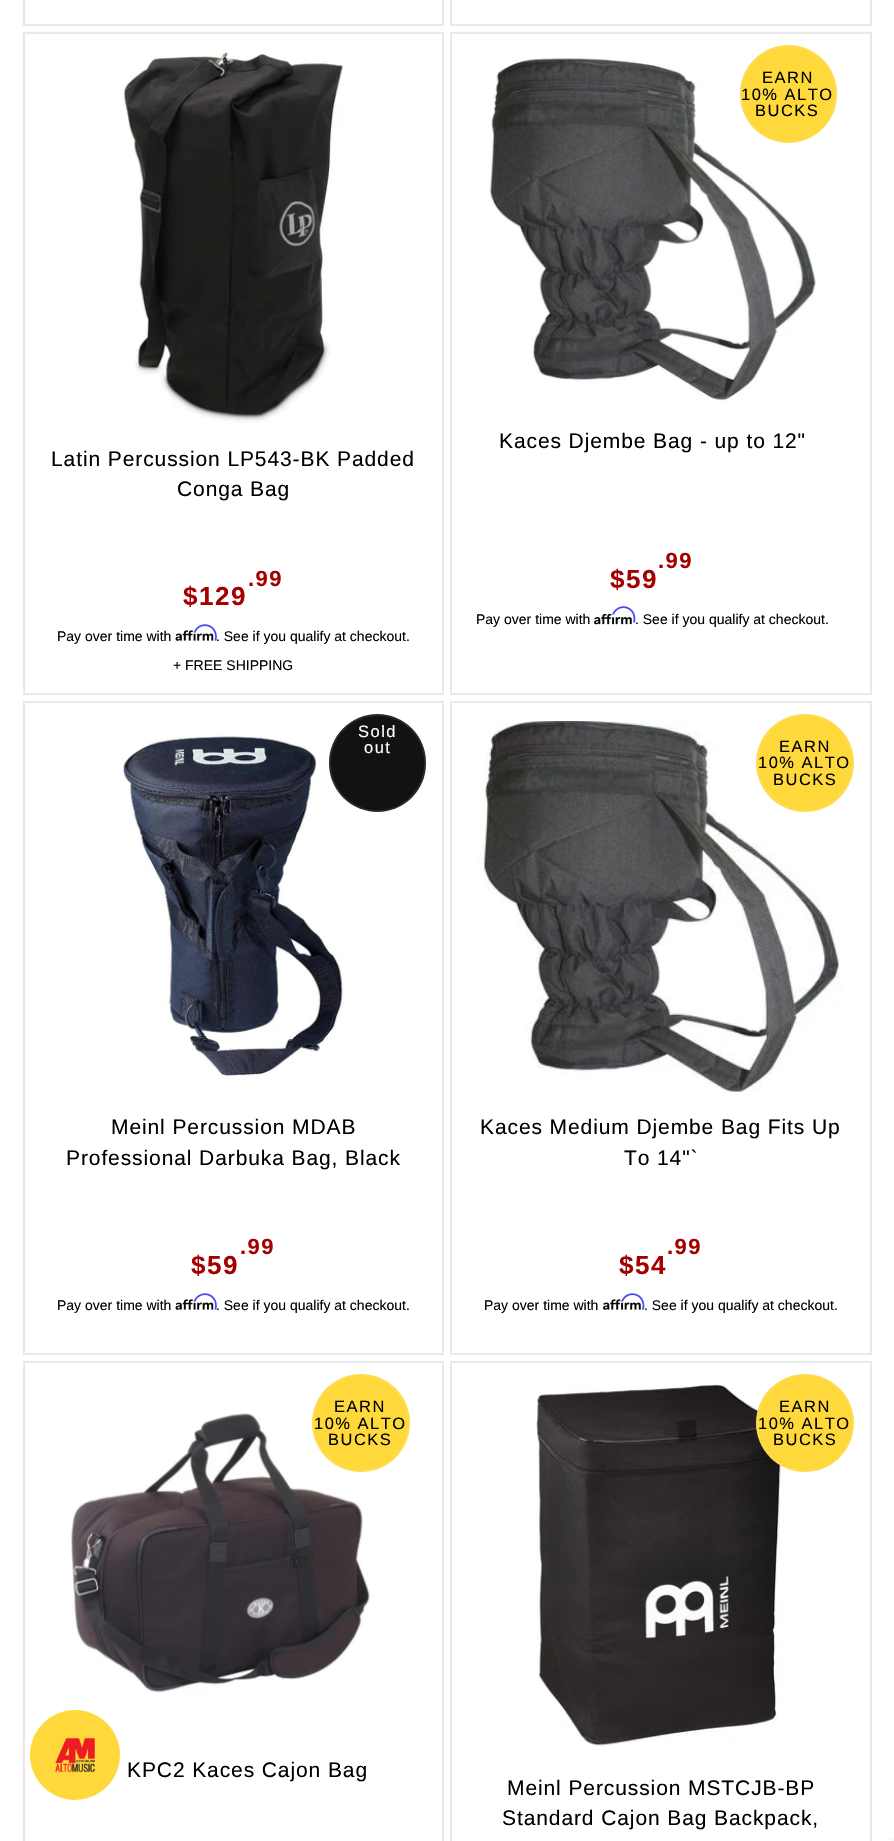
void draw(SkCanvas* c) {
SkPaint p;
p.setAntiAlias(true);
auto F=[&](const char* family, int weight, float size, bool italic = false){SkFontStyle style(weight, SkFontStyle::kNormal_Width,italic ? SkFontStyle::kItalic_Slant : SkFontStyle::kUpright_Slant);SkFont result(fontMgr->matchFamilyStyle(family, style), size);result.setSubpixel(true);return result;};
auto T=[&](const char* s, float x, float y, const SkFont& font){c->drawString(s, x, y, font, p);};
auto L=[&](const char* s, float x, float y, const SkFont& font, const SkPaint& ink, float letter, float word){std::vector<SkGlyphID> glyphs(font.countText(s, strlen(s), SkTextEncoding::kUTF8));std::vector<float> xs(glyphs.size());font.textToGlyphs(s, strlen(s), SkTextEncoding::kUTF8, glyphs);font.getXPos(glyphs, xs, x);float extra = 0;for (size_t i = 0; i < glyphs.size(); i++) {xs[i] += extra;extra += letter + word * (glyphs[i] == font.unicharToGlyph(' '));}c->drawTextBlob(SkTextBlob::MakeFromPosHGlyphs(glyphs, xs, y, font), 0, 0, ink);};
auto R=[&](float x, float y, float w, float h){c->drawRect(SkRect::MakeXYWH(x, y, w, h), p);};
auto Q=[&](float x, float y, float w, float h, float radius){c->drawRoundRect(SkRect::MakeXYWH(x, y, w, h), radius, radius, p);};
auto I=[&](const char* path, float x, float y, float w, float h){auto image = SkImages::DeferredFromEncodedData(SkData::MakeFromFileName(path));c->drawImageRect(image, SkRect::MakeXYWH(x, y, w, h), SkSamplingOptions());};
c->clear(0xffffffff);
p.setStroke(true);
p.setStrokeWidth(2);
p.setColor(0xffeae8e8);
c->drawRect(SkRect::MakeXYWH(24,-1,419,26),p);
c->drawRect(SkRect::MakeXYWH(451,-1,420,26),p);
c->drawRect(SkRect::MakeXYWH(24,33,419,661),p);
I("1.png",122,52,221,371);
auto f1 = F("Liberation Sans",400,21);
p.setStroke(false);
p.setColor(0xff000000);
L("Latin Percussion LP543-BK Padded",51,466,f1,p,.9,0);
L("Conga Bag",177,496,f1,p,.9,0);
auto f2 = F("Liberation Sans",700,22);
p.setColor(0xffa40000);
L(".99",248,586,f2,p,1.5,0);
auto f3 = F("Liberation Sans",700,26);
L("$129",183,605,f3,p,1.5,0);
auto f4 = F("Liberation Sans",400,14);
p.setColor(0xff000000);
T("Pay over time with",57,641,f4);
I("3.png",175,630,39,11);
I("2.png",193,624,24,17);
T(". See if you qualify at checkout.",216,641,f4);
T("+ FREE SHIPPING",173,670,f4);
p.setStroke(true);
p.setColor(0xffeae8e8);
c->drawRect(SkRect::MakeXYWH(451,33,420,661),p);
I("4.png",489,58,327,344);
p.setStroke(false);
p.setColor(0xffffd83b);
Q(740,45,97,98,48.5);
p.setStroke(true);
p.setColor(0x1affffff);
c->drawRoundRect(SkRect::MakeXYWH(741,46,95,96),47.5,47.5,p);
auto f5 = F("Liberation Sans",400,16.5);
p.setStroke(false);
p.setColor(0xff000000);
L("EARN",762,83,f5,p,1.5,0);
L("10% ALTO",741,100,f5,p,1.5,0);
L("BUCKS",755,116,f5,p,1.5,0);
L("Kaces Djembe Bag - up to 12\"",499,448,f1,p,.9,0);
p.setColor(0xffa40000);
L(".99",658,568,f2,p,1.5,0);
L("$59",610,588,f3,p,1.5,0);
p.setColor(0xff000000);
T("Pay over time with",476,624,f4);
I("6.png",594,613,38,12);
I("5.png",612,606,24,17);
T(". See if you qualify at checkout.",635,624,f4);
p.setStroke(true);
p.setColor(0xffeae8e8);
c->drawRect(SkRect::MakeXYWH(24,702,419,652),p);
I("7.png",122,734,222,344);
p.setStroke(false);
p.setColor(0xff121212);
Q(329,714,97,98,48.5);
p.setStroke(true);
p.setColor(0x1affffff);
c->drawRoundRect(SkRect::MakeXYWH(330,715,95,96),47.5,47.5,p);
p.setStroke(false);
p.setColor(0xffffffff);
L("Sold",358,737,f5,p,1.5,0);
L("out",364,753,f5,p,1.5,0);
p.setColor(0xff000000);
L("Meinl Percussion MDAB",111,1134,f1,p,.9,0);
L("Professional Darbuka Bag, Black",66,1165,f1,p,.9,0);
p.setColor(0xffa40000);
L(".99",240,1254,f2,p,1.5,0);
L("$59",191,1274,f3,p,1.5,0);
p.setColor(0xff000000);
T("Pay over time with",57,1310,f4);
I("3.png",175,1299,39,11);
I("2.png",193,1293,24,17);
T(". See if you qualify at checkout.",216,1310,f4);
p.setStroke(true);
p.setColor(0xffeae8e8);
c->drawRect(SkRect::MakeXYWH(451,702,420,652),p);
I("8.png",477,721,366,371);
p.setStroke(false);
p.setColor(0xffffd83b);
c->drawCircle(805,763,49,p);
p.setStroke(true);
p.setColor(0x1affffff);
c->drawCircle(805,763,48,p);
p.setStroke(false);
p.setColor(0xff000000);
L("EARN",779,752,f5,p,1.5,0);
L("10% ALTO",758,768,f5,p,1.5,0);
L("BUCKS",773,785,f5,p,1.5,0);
L("Kaces Medium Djembe Bag Fits Up",480,1134,f1,p,.9,0);
L("To 14\"`",624,1165,f1,p,.9,0);
p.setColor(0xffa40000);
L(".99",667,1254,f2,p,1.5,0);
L("$54",619,1274,f3,p,1.5,0);
p.setColor(0xff000000);
T("Pay over time with",484,1310,f4);
I("10.png",603,1299,38,11);
T(". See if you qualify at checkout.",644,1310,f4);
I("9.png",621,1293,24,17);
p.setStroke(true);
p.setColor(0xffeae8e8);
c->drawRect(SkRect::MakeXYWH(24,1362,419,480),p);
I("11.png",71,1413,299,280);
p.setStroke(false);
p.setColor(0xffffd83b);
c->drawCircle(361,1423,49,p);
p.setStroke(true);
p.setColor(0x1affffff);
c->drawCircle(361,1423,48,p);
p.setStroke(false);
p.setColor(0xff000000);
L("EARN",334,1412,f5,p,1.5,0);
L("10% ALTO",314,1429,f5,p,1.5,0);
L("BUCKS",328,1445,f5,p,1.5,0);
L("KPC2 Kaces Cajon Bag",127,1777,f1,p,.9,0);
p.setStroke(true);
p.setColor(0xffeae8e8);
c->drawRect(SkRect::MakeXYWH(451,1362,420,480),p);
I("12.png",535,1382,249,365);
p.setStroke(false);
p.setColor(0xffffd83b);
c->drawCircle(805,1423,49,p);
p.setStroke(true);
p.setColor(0x1affffff);
c->drawCircle(805,1423,48,p);
p.setStroke(false);
p.setColor(0xff000000);
L("EARN",779,1412,f5,p,1.5,0);
L("10% ALTO",758,1429,f5,p,1.5,0);
L("BUCKS",773,1445,f5,p,1.5,0);
L("Meinl Percussion MSTCJB-BP",507,1795,f1,p,.9,0);
L("Standard Cajon Bag Backpack,",502,1825,f1,p,.9,0);
p.setColor(0xffffd83b);
c->drawCircle(75,1755,45,p);
I("13.png",55,1737,40,36);
p.setColor(0xfff5f5f5);
R(891,1839,3,2);
}
